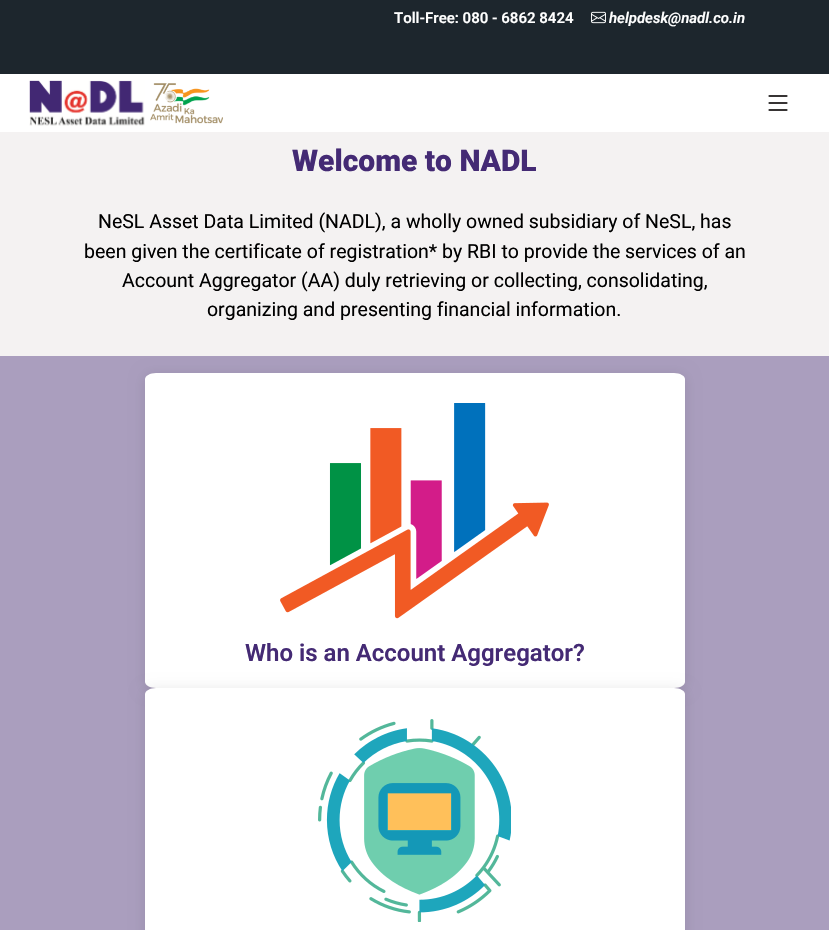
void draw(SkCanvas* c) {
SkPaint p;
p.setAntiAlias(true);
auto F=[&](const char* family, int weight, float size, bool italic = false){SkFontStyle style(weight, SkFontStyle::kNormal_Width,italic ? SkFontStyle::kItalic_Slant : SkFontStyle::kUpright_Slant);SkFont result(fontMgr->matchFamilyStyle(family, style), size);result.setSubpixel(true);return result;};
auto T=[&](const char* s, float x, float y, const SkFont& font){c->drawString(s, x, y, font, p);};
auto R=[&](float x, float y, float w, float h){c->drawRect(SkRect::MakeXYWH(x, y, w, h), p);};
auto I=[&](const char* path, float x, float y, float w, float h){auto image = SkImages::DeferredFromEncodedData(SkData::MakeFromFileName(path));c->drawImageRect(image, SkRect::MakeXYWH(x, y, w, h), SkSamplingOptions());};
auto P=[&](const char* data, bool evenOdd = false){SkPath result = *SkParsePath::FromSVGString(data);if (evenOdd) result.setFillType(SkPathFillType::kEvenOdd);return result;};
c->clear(0xfff4f2f2);
p.setColor(0xff1d262d);
R(0,0,829,74);
auto f1 = F("Roboto",600,15);
p.setColor(0xffffffff);
T("Toll-Free: 080 - 6862 8424",394,23,f1);
I("1.png",591,11,15,13);
auto f2 = F("Roboto",600,15,true);
T("helpdesk@nadl.co.in",609,23,f2);
R(0,74,829,58);
I("2.png",29,80,116,46);
I("3.png",150,83,73,41);
I("4.png",768,95,20,16);
auto f3 = F("Roboto",900,30);
p.setColor(0xff442a74);
T("Welcome to NADL",292,171,f3);
auto f4 = F("Roboto",400,19.5);
p.setColor(0xff000000);
T("NeSL Asset Data Limited (NADL), a wholly owned subsidiary of NeSL, has",98,228,f4);
T("been given the certificate of registration* by RBI to provide the services of an",84,258,f4);
T("Account Aggregator (AA) duly retrieving or collecting, consolidating,",122,287,f4);
T("organizing and presenting financial information.",207,316,f4);
p.setColor(0xffaa9ebe);
R(0,356,829,574);
p.setColor(0x1a000000);
p.setMaskFilter(SkMaskFilter::MakeBlur(kNormal_SkBlurStyle, 7.5));
c->drawRoundRect(SkRect::MakeXYWH(145,375,540,315),6,6,p);
p.setMaskFilter(nullptr);
p.setColor(0xffffffff);
c->drawPath(P("M156 373h518c6 0 11 3 11 6v303c0 3-5 6-11 6h-518c-6 0-11-3-11-6v-303c0-3 5-6 11-6z"),p);
I("5.png",280,403,269,216);
auto f5 = F("Roboto",600,24);
p.setColor(0xff442a74);
T("Who is an Account Aggregator?",245,661,f5);
p.setColor(0x1a000000);
p.setMaskFilter(SkMaskFilter::MakeBlur(kNormal_SkBlurStyle, 7.5));
c->drawRoundRect(SkRect::MakeXYWH(145,690,540,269),6,6,p);
p.setMaskFilter(nullptr);
p.setColor(0xffffffff);
c->drawPath(P("M156 688h518c6 0 11 3 11 6v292c0 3-5 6-11 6h-518c-6 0-11-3-11-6v-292c0-3 5-6 11-6z"),p);
I("6.png",318,719,193,203);
}
